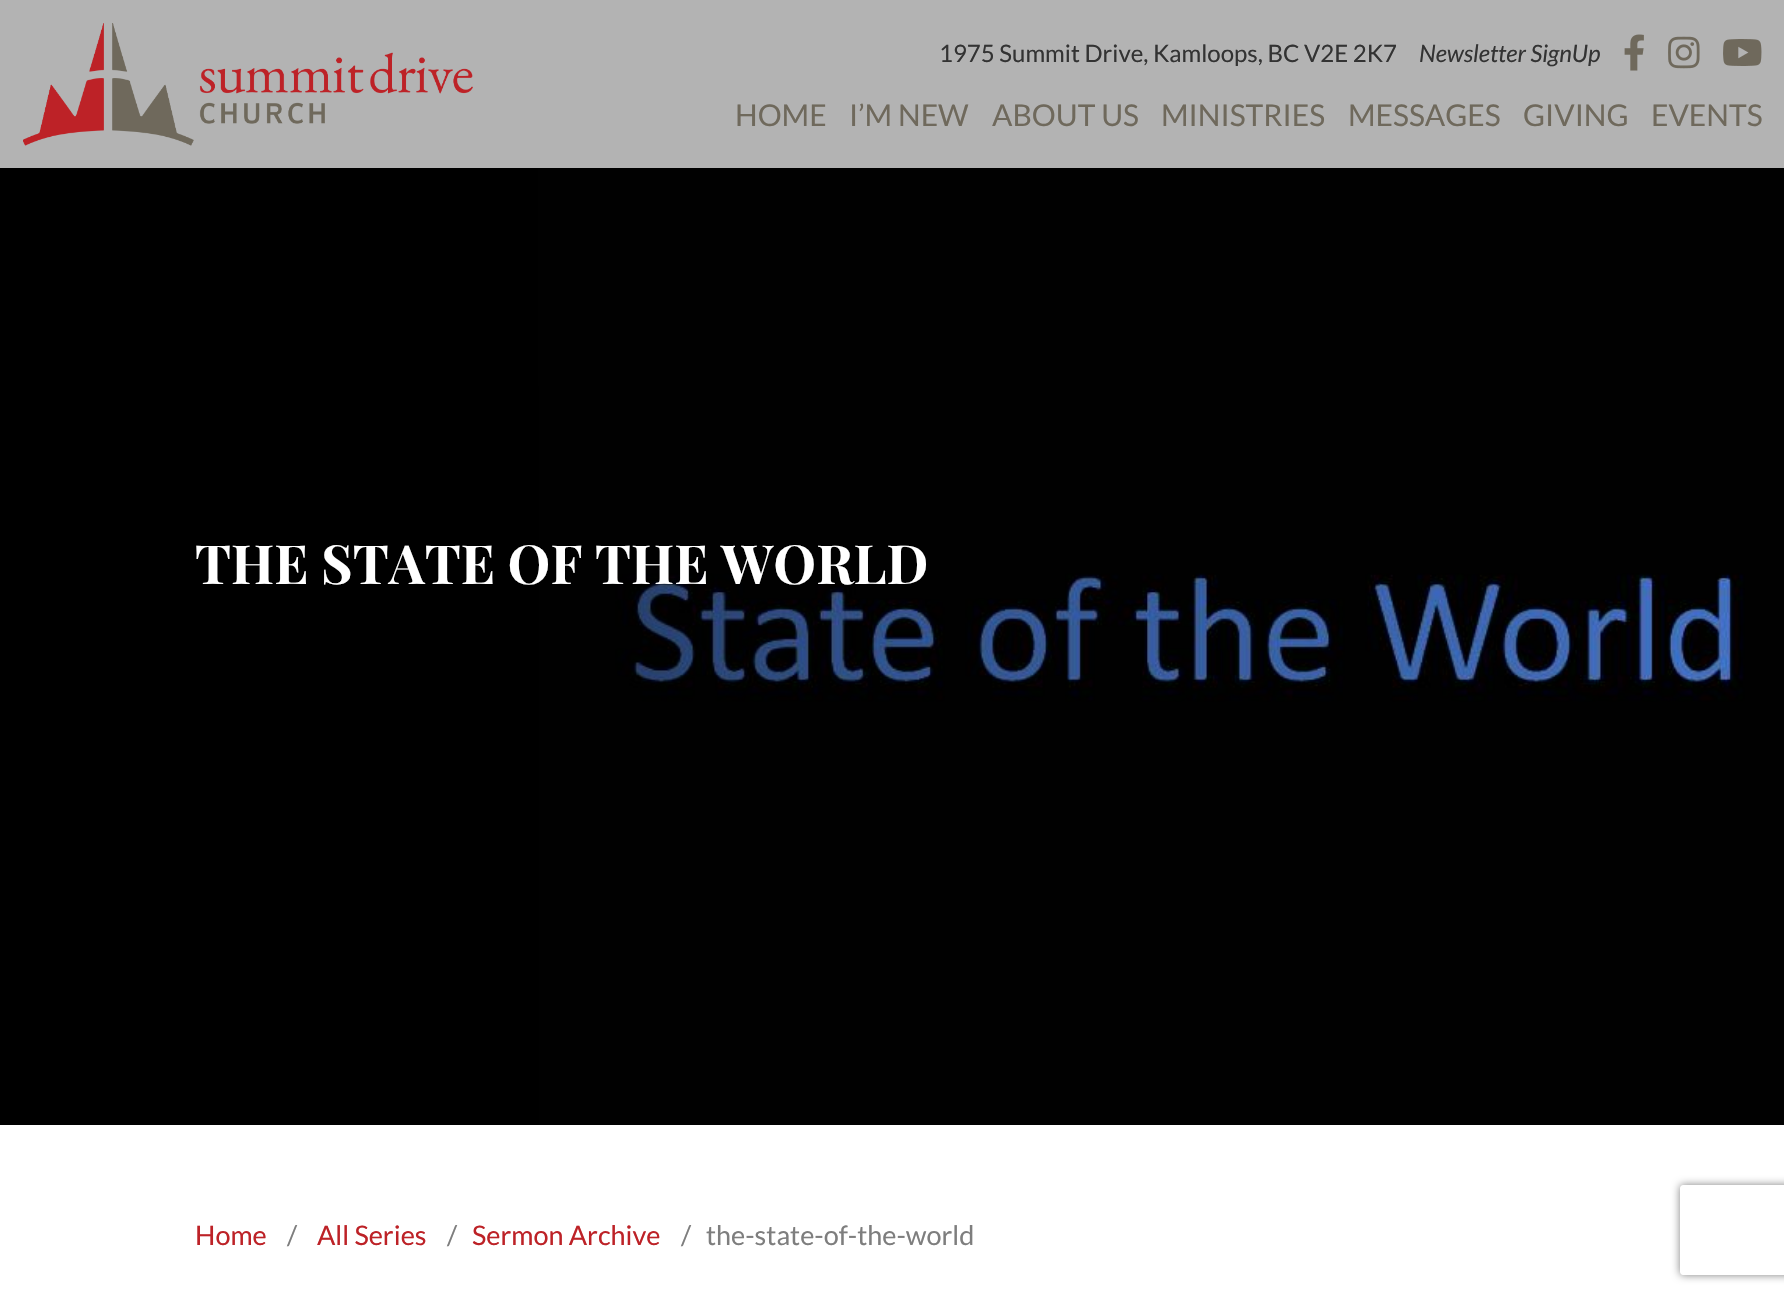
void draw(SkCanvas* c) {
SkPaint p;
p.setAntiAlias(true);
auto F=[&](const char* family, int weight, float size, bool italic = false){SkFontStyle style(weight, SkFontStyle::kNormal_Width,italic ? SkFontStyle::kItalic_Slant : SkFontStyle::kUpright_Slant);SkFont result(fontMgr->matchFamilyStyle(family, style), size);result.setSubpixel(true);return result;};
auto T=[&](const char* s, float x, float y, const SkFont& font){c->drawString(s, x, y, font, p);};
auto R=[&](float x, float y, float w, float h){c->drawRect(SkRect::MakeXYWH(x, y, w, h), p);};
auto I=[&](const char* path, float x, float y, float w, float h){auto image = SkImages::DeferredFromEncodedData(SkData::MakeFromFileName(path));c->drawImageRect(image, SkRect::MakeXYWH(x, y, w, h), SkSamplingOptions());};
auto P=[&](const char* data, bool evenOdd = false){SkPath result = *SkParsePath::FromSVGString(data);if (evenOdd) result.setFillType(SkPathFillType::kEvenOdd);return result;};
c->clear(0xffffffff);
p.setColor(0xffb3b3b3);
R(0,0,1784,168);
I("1.png",23,23,450,123);
auto f1 = F("Lato",400,24);
p.setColor(0xff333333);
T("1975 Summit Drive, Kamloops, BC V2E 2K7",939,62,f1);
auto f2 = F("Lato",400,24,true);
T("Newsletter SignUp",1419,62,f2);
I("2.png",1624,34,20,37);
I("3.png",1668,36,32,33);
I("4.png",1723,39,39,27);
auto f3 = F("Lato",400,30);
p.setColor(0xff6f695c);
T("HOME",735,126,f3);
T("I’M NEW",849,126,f3);
T("ABOUT US",992,126,f3);
T("MINISTRIES",1161,126,f3);
T("MESSAGES",1348,126,f3);
T("GIVING",1523,126,f3);
T("EVENTS",1651,126,f3);
I("5.png",0,168,1784,957);
auto f4 = F("Playfair Display",700,54);
p.setColor(0xffffffff);
T("THE STATE OF THE WORLD",195,584,f4);
auto f5 = F("Lato",400,27);
p.setColor(0xffbd2227);
T("Home",195,1245,f5);
p.setColor(0xff7e7e7e);
T("/",287,1245,f5);
p.setColor(0xffbd2227);
T("All Series",317,1245,f5);
p.setColor(0xff7e7e7e);
T("/",447,1245,f5);
p.setColor(0xffbd2227);
T("Sermon Archive",472,1245,f5);
p.setColor(0xff7e7e7e);
T("/",681,1245,f5);
T("the-state-of-the-world",706,1245,f5);
c->save();
c->clipPath(P("M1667 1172h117v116h-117zm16 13h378c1.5 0 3 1.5 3 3v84c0 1.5-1.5 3-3 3h-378c-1.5 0-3-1.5-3-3v-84c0-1.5 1.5-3 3-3z",true),true);
p.setColor(0xff808080);
p.setMaskFilter(SkMaskFilter::MakeBlur(kNormal_SkBlurStyle, 4));
c->drawRoundRect(SkRect::MakeXYWH(1680,1185,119,90),3,3,p);
p.setMaskFilter(nullptr);
c->restore();
}
